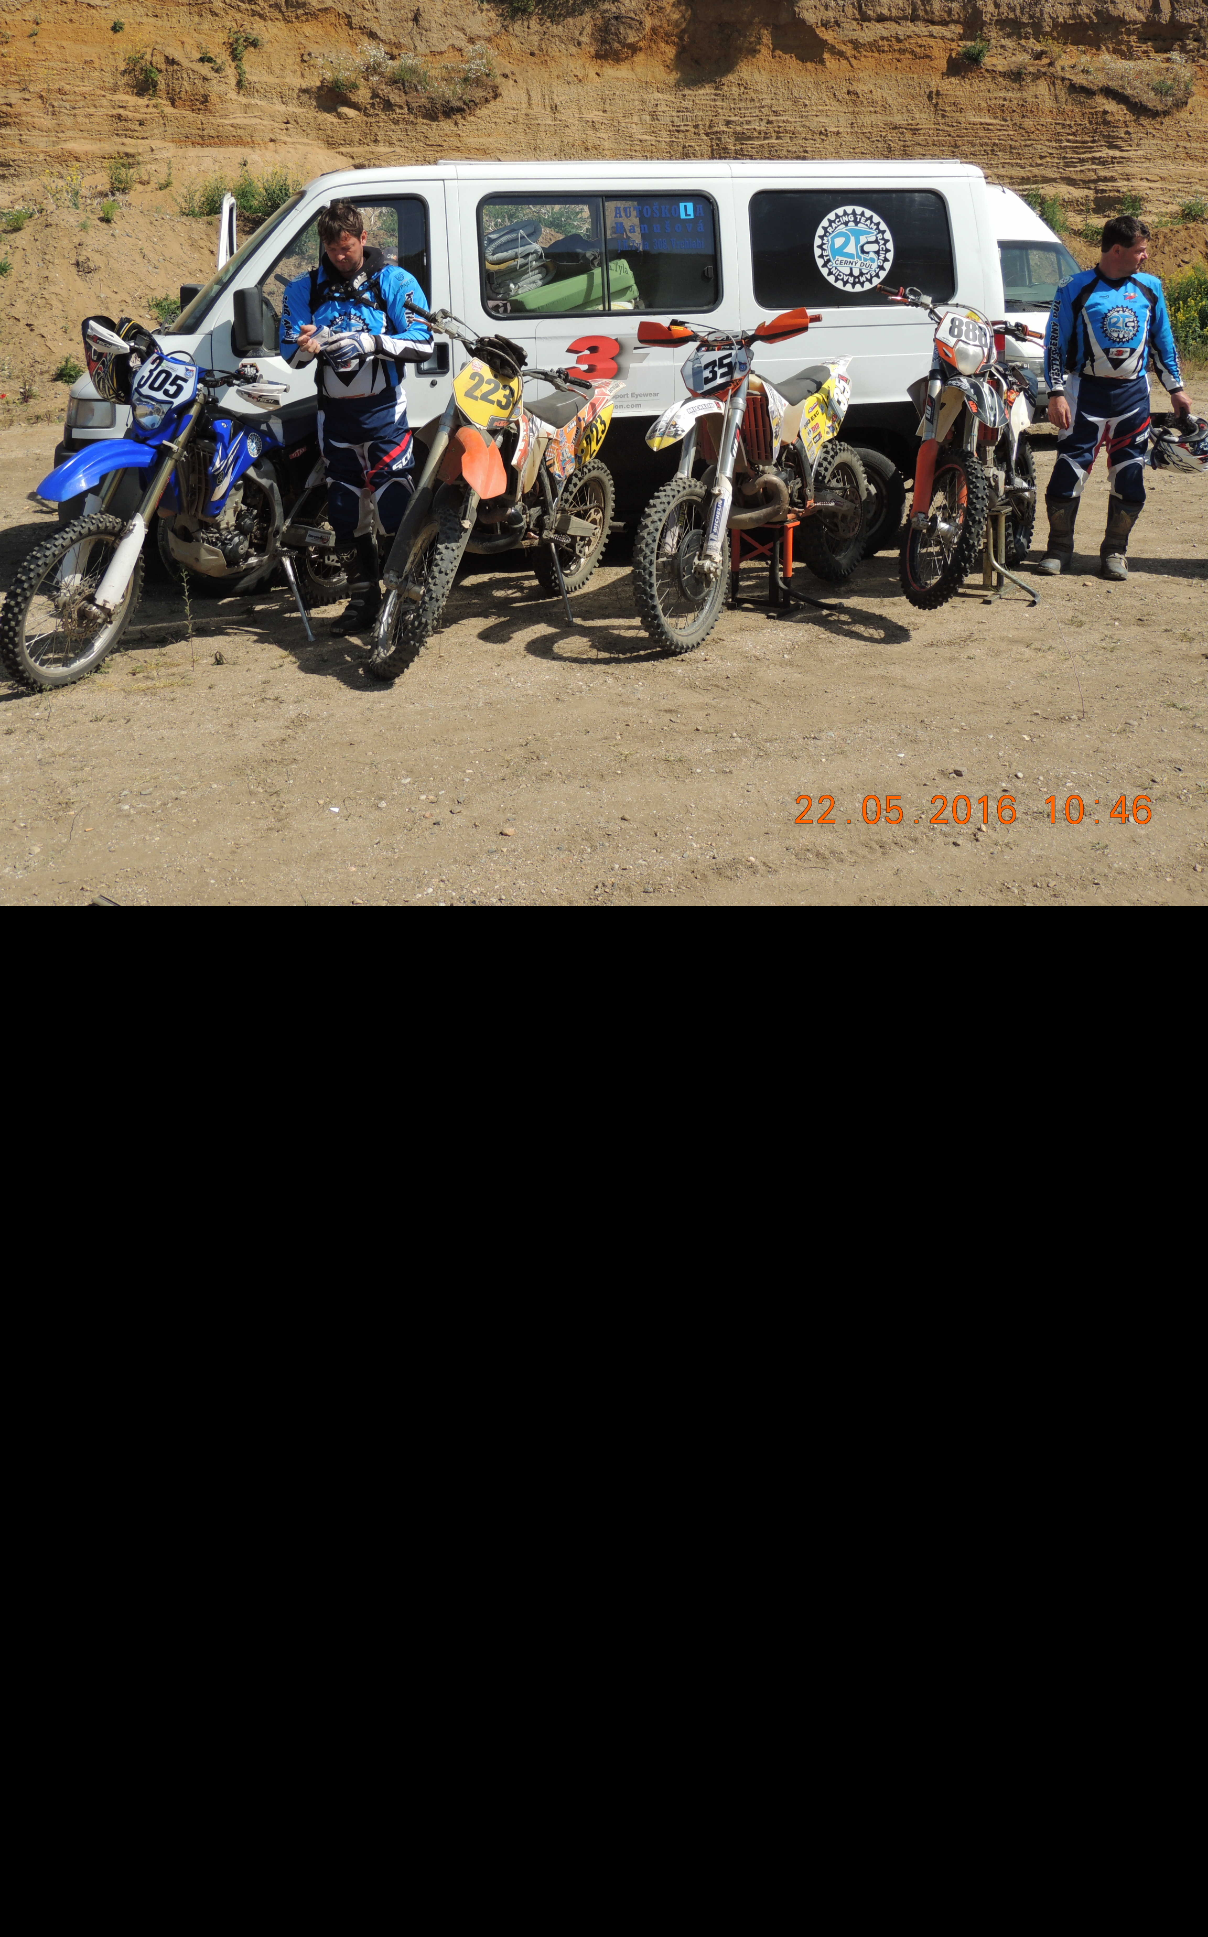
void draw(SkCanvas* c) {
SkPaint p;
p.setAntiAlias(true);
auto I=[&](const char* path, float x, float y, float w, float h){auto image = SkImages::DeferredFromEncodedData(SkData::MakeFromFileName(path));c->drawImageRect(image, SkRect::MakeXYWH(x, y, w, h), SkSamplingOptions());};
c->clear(0xff000000);
I("1.png",0,0,1208,906);
}
